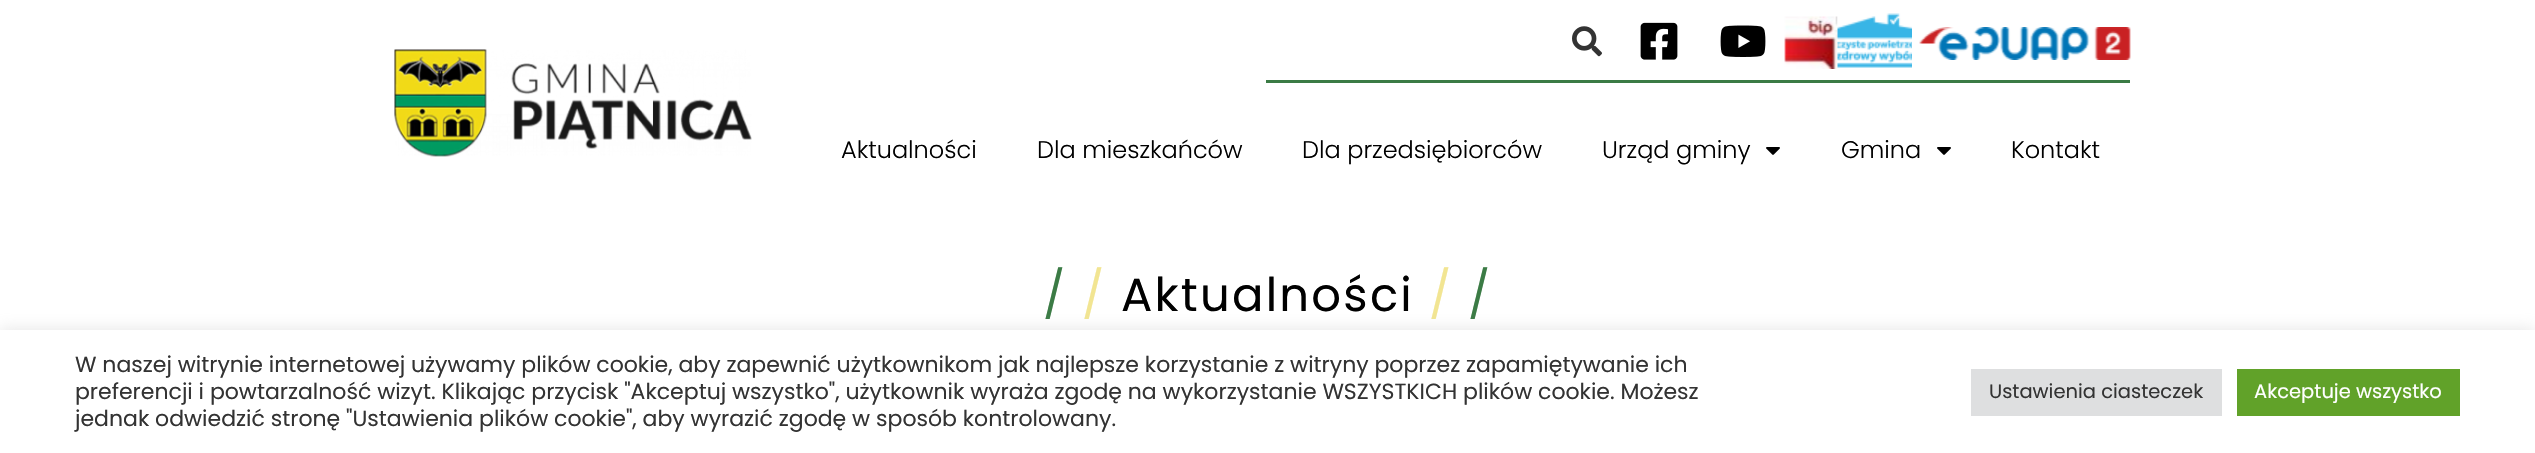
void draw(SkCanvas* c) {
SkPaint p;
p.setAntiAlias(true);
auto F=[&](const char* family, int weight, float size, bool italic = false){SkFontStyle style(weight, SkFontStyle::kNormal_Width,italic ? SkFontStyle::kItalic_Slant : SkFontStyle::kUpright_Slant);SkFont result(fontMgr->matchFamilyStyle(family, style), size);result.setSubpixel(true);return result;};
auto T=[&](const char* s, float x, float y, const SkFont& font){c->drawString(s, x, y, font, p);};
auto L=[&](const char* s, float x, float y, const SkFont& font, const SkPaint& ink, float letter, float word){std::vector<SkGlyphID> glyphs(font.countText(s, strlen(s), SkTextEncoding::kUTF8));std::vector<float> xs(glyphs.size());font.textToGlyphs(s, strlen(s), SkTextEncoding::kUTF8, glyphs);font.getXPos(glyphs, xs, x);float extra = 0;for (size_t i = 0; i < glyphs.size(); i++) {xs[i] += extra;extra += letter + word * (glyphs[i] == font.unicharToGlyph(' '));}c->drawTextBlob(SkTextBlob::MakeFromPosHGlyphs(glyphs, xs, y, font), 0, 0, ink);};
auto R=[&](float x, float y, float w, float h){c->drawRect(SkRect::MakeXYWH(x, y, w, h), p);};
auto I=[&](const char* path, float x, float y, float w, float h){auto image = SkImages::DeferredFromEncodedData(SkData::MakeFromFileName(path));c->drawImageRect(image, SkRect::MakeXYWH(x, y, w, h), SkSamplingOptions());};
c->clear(0xffffffff);
I("1.png",394,49,358,108);
I("2.png",1572,26,30,31);
I("3.png",1640,22,38,38);
I("4.png",1720,25,46,32);
I("5.png",1784,16,54,53);
I("6.png",1837,13,75,55);
I("7.png",1919,27,212,33);
p.setColor(0xff3b7b45);
R(1266,80,864,3);
auto f1 = F("Poppins",300,24);
p.setColor(0xff000000);
T("Aktualności",841,158,f1);
T("Dla mieszkańców",1037,158,f1);
T("Dla przedsiębiorców",1302,158,f1);
T("Urząd gminy",1602,158,f1);
I("8.png",1766,147,14,8);
T("Gmina",1841,158,f1);
I("8.png",1937,147,14,8);
T("Kontakt",2011,158,f1);
auto f2 = F("Poppins",400,46.5);
p.setColor(0xff3b7b45);
L("/",1043,311,f2,p,2.25,0);
p.setColor(0xfff2e592);
L("/",1082,311,f2,p,2.25,0);
p.setColor(0xff000000);
L("Aktualności",1121,311,f2,p,2.25,0);
p.setColor(0xfff2e592);
L("/",1429,311,f2,p,2.25,0);
p.setColor(0xff3b7b45);
L("/",1468,311,f2,p,2.25,0);
p.setColor(0x4dacabab);
p.setMaskFilter(SkMaskFilter::MakeBlur(kNormal_SkBlurStyle, 7.5));
c->drawRect(SkRect::MakeXYWH(0,329,2535,123),p);
p.setMaskFilter(nullptr);
p.setColor(0xffffffff);
R(0,330,2535,123);
auto f3 = F("Poppins",400,22);
p.setColor(0xff333333);
T("W naszej witrynie internetowej używamy plików cookie, aby zapewnić użytkownikom jak najlepsze korzystanie z witryny poprzez zapamiętywanie ich",75,372,f3);
T("preferencji i powtarzalność wizyt. Klikając przycisk \"Akceptuj wszystko\", użytkownik wyraża zgodę na wykorzystanie WSZYSTKICH plików cookie. Możesz",75,399,f3);
T("jednak odwiedzić stronę \"Ustawienia plików cookie\", aby wyrazić zgodę w sposób kontrolowany.",75,426,f3);
p.setColor(0xffdedfe0);
R(1971,369,251,47);
auto f4 = F("Poppins",400,19.5);
p.setColor(0xff333333);
T("Ustawienia ciasteczek",1989,398,f4);
p.setColor(0xff61a229);
R(2237,369,223,47);
p.setColor(0xffffffff);
T("Akceptuje wszystko",2254,398,f4);
}
